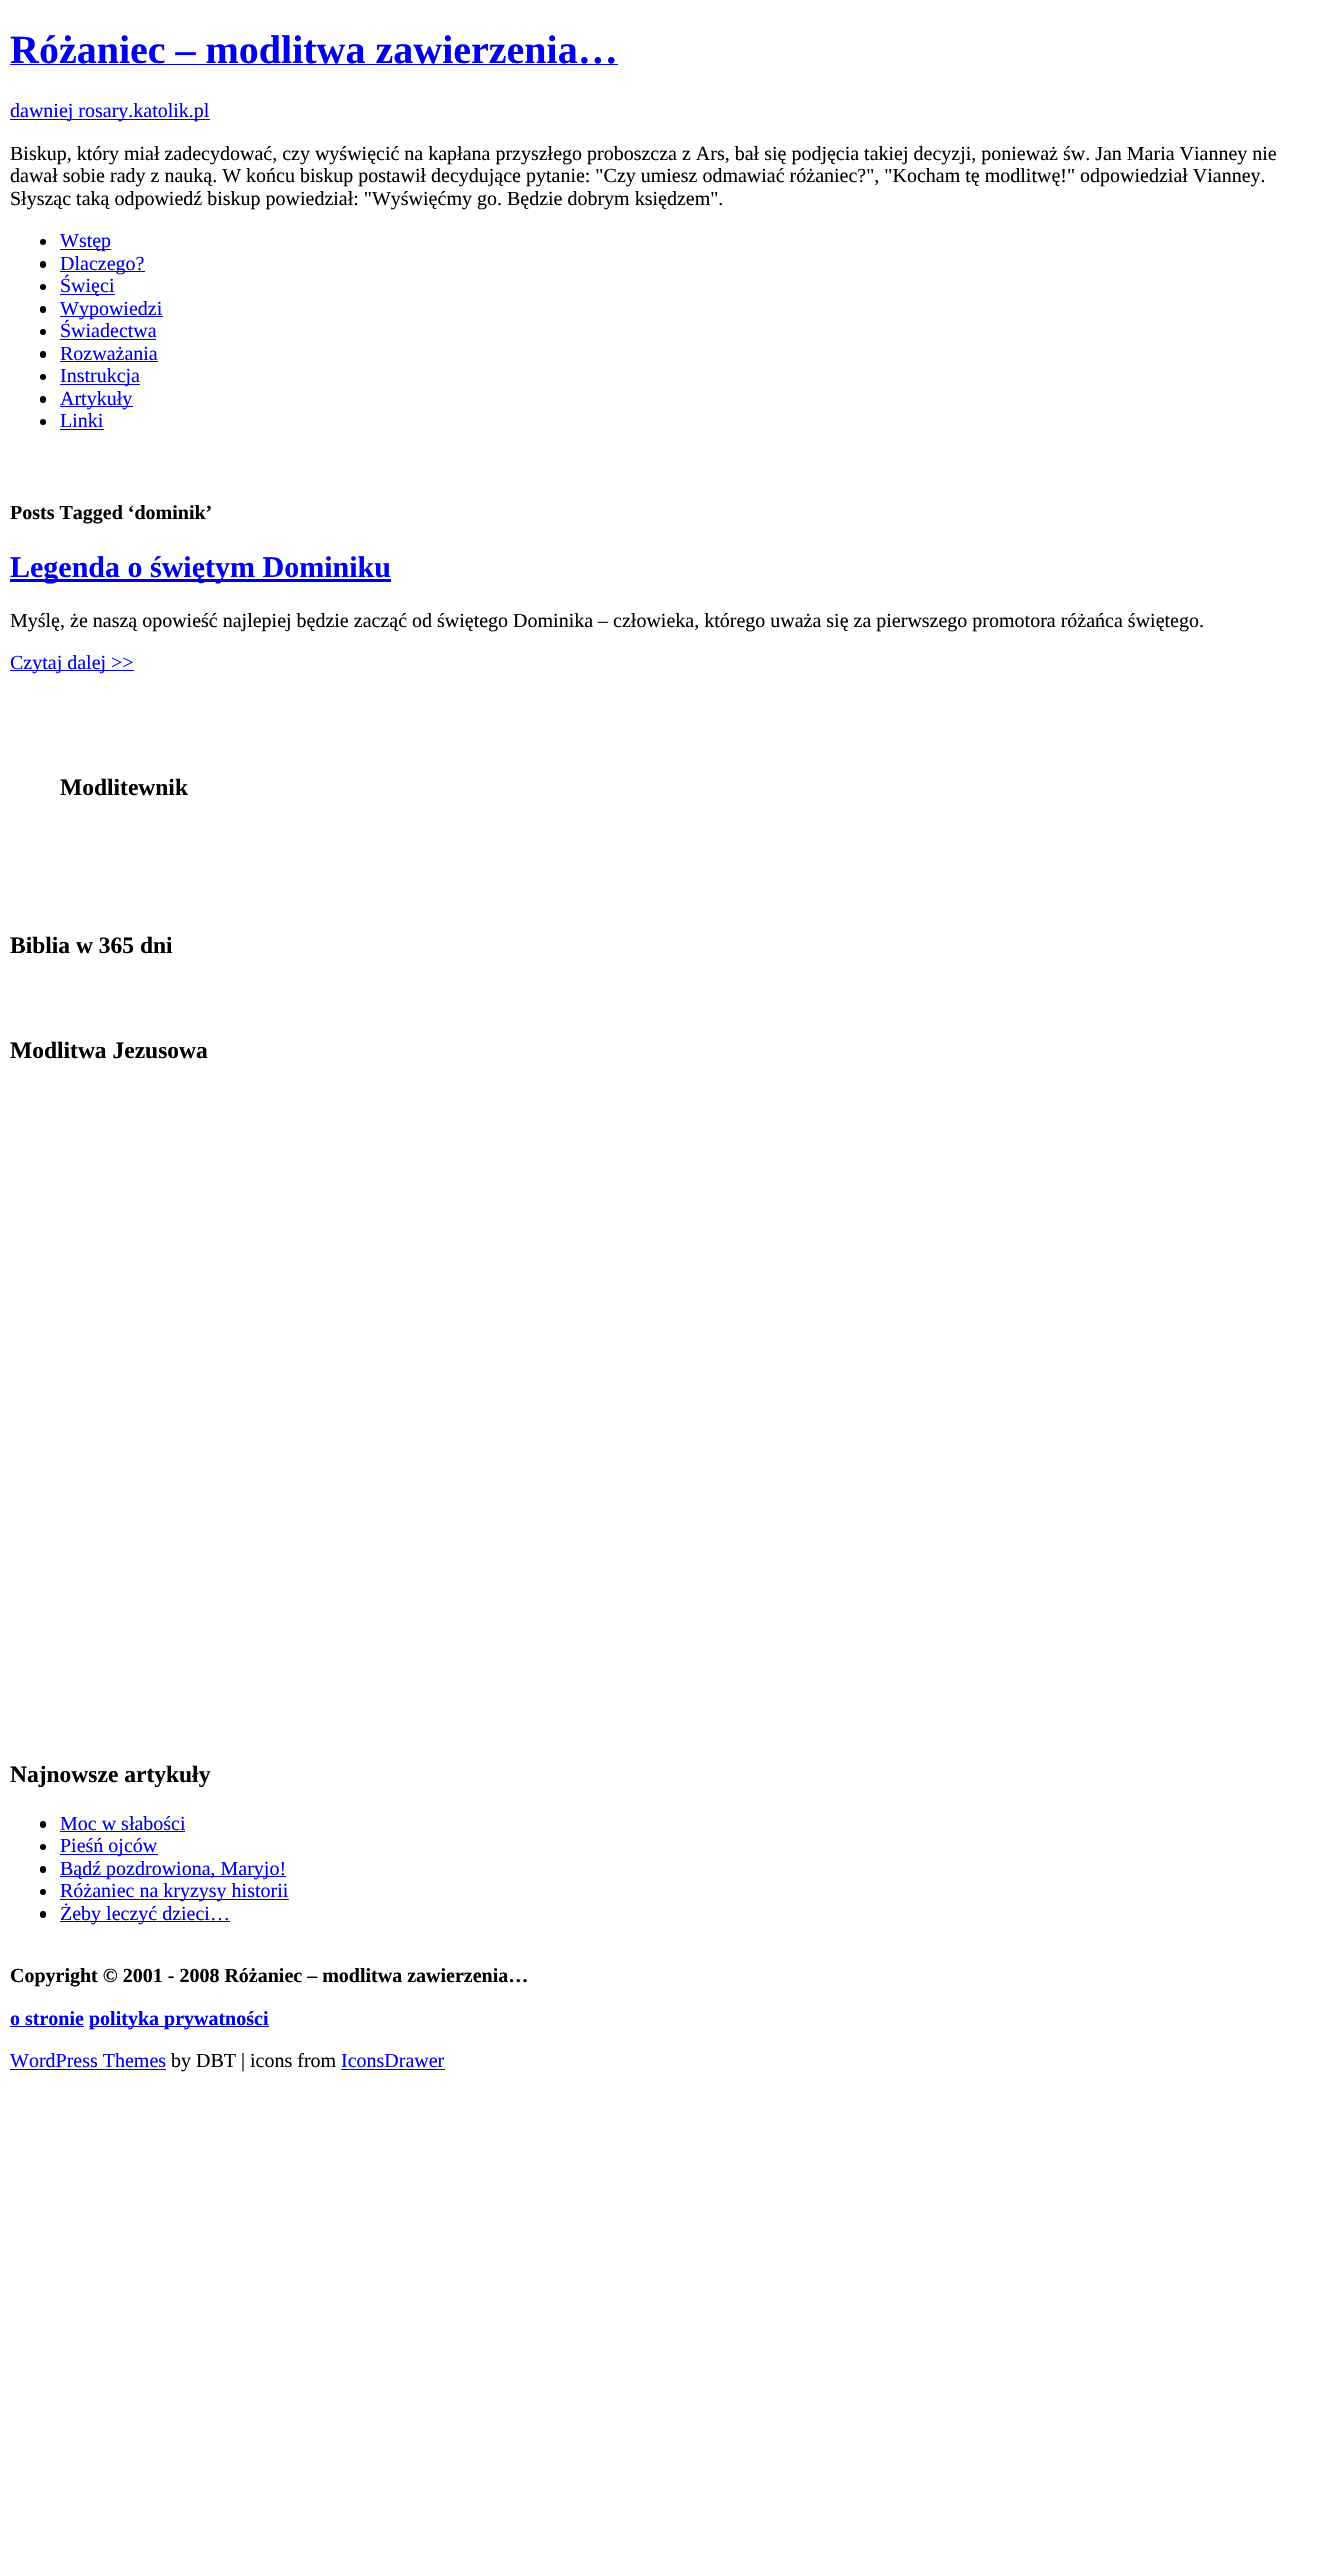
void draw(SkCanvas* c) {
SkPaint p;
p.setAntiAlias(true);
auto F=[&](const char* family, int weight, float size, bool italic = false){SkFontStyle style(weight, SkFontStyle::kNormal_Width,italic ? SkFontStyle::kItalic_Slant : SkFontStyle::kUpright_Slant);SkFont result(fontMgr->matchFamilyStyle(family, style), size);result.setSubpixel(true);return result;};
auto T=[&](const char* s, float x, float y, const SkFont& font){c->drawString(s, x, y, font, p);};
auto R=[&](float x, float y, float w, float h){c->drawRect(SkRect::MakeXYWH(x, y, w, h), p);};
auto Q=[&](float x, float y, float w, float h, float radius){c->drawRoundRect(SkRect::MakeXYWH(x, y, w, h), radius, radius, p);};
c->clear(0xffffffff);
auto f1 = F("Liberation Serif",700,40);
p.setColor(0xff0000ee);
T("Różaniec – modlitwa zawierzenia…",10,63,f1);
R(10,64,608,1);
R(10,119,200,1);
auto f2 = F("Liberation Serif",400,20);
T("dawniej rosary.katolik.pl",10,117,f2);
p.setColor(0xff000000);
T("Biskup, który miał zadecydować, czy wyświęcić na kapłana przyszłego proboszcza z Ars, bał się podjęcia takiej decyzji, ponieważ św. Jan Maria Vianney nie",10,160,f2);
T("dawał sobie rady z nauką. W końcu biskup postawił decydujące pytanie: \"Czy umiesz odmawiać różaniec?\", \"Kocham tę modlitwę!\" odpowiedział Vianney.",10,182,f2);
T("Słysząc taką odpowiedź biskup powiedział: \"Wyświęćmy go. Będzie dobrym księdzem\".",10,205,f2);
c->drawCircle(43,242,3,p);
p.setColor(0xff0000ee);
R(60,249,51,1);
T("Wstęp",60,247,f2);
p.setColor(0xff000000);
Q(40,261,6,7,3);
p.setColor(0xff0000ee);
R(60,271,85,1);
T("Dlaczego?",60,270,f2);
p.setColor(0xff000000);
c->drawCircle(43,287,3,p);
p.setColor(0xff0000ee);
R(60,294,55,1);
T("Święci",60,292,f2);
p.setColor(0xff000000);
Q(40,306,6,7,3);
p.setColor(0xff0000ee);
R(60,316,103,1);
T("Wypowiedzi",60,315,f2);
p.setColor(0xff000000);
c->drawCircle(43,332,3,p);
p.setColor(0xff0000ee);
T("Świadectwa",60,337,f2);
R(60,339,96,1);
p.setColor(0xff000000);
Q(40,351,6,7,3);
p.setColor(0xff0000ee);
T("Rozważania",60,360,f2);
R(60,361,98,1);
p.setColor(0xff000000);
c->drawCircle(43,377,3,p);
p.setColor(0xff0000ee);
R(60,384,80,1);
T("Instrukcja",60,382,f2);
p.setColor(0xff000000);
Q(40,396,6,7,3);
p.setColor(0xff0000ee);
R(60,406,73,1);
T("Artykuły",60,405,f2);
p.setColor(0xff000000);
c->drawCircle(43,422,3,p);
p.setColor(0xff0000ee);
T("Linki",60,427,f2);
R(60,429,44,1);
auto f3 = F("Liberation Serif",700,20);
p.setColor(0xff000000);
T("Posts Tagged ‘dominik’",10,519,f3);
p.setColor(0xff0000ee);
R(10,579,381,3);
auto f4 = F("Liberation Serif",700,30);
T("Legenda o świętym Dominiku",10,577,f4);
p.setColor(0xff000000);
T("Myślę, że naszą opowieść najlepiej będzie zacząć od świętego Dominika – człowieka, którego uważa się za pierwszego promotora różańca świętego.",10,627,f2);
p.setColor(0xff0000ee);
R(10,670,124,1);
T("Czytaj dalej >>",10,669,f2);
auto f5 = F("Liberation Serif",700,23.5);
p.setColor(0xff000000);
T("Modlitewnik",60,795,f5);
T("Biblia w 365 dni",10,953,f5);
T("Modlitwa Jezusowa",10,1058,f5);
T("Najnowsze artykuły",10,1782,f5);
Q(40,1821,6,7,3);
p.setColor(0xff0000ee);
T("Moc w słabości",60,1830,f2);
R(60,1831,125,1);
p.setColor(0xff000000);
c->drawCircle(43,1847,3,p);
p.setColor(0xff0000ee);
R(60,1854,98,1);
T("Pieśń ojców",60,1852,f2);
p.setColor(0xff000000);
Q(40,1866,6,7,3);
p.setColor(0xff0000ee);
R(60,1876,226,1);
T("Bądź pozdrowiona, Maryjo!",60,1875,f2);
p.setColor(0xff000000);
c->drawCircle(43,1892,3,p);
p.setColor(0xff0000ee);
R(60,1899,229,1);
T("Różaniec na kryzysy historii",60,1897,f2);
p.setColor(0xff000000);
Q(40,1911,6,7,3);
p.setColor(0xff0000ee);
R(60,1921,170,1);
T("Żeby leczyć dzieci…",60,1920,f2);
p.setColor(0xff000000);
T("Copyright © 2001 - 2008 Różaniec – modlitwa zawierzenia…",10,1982,f3);
p.setColor(0xff0000ee);
T("o stronie",10,2025,f3);
R(10,2026,74,1);
R(89,2026,180,1);
T("polityka prywatności",89,2025,f3);
T("WordPress Themes",10,2067,f2);
R(10,2069,156,1);
p.setColor(0xff000000);
T("by DBT | icons from",171,2067,f2);
p.setColor(0xff0000ee);
T("IconsDrawer",341,2067,f2);
R(341,2069,104,1);
}
